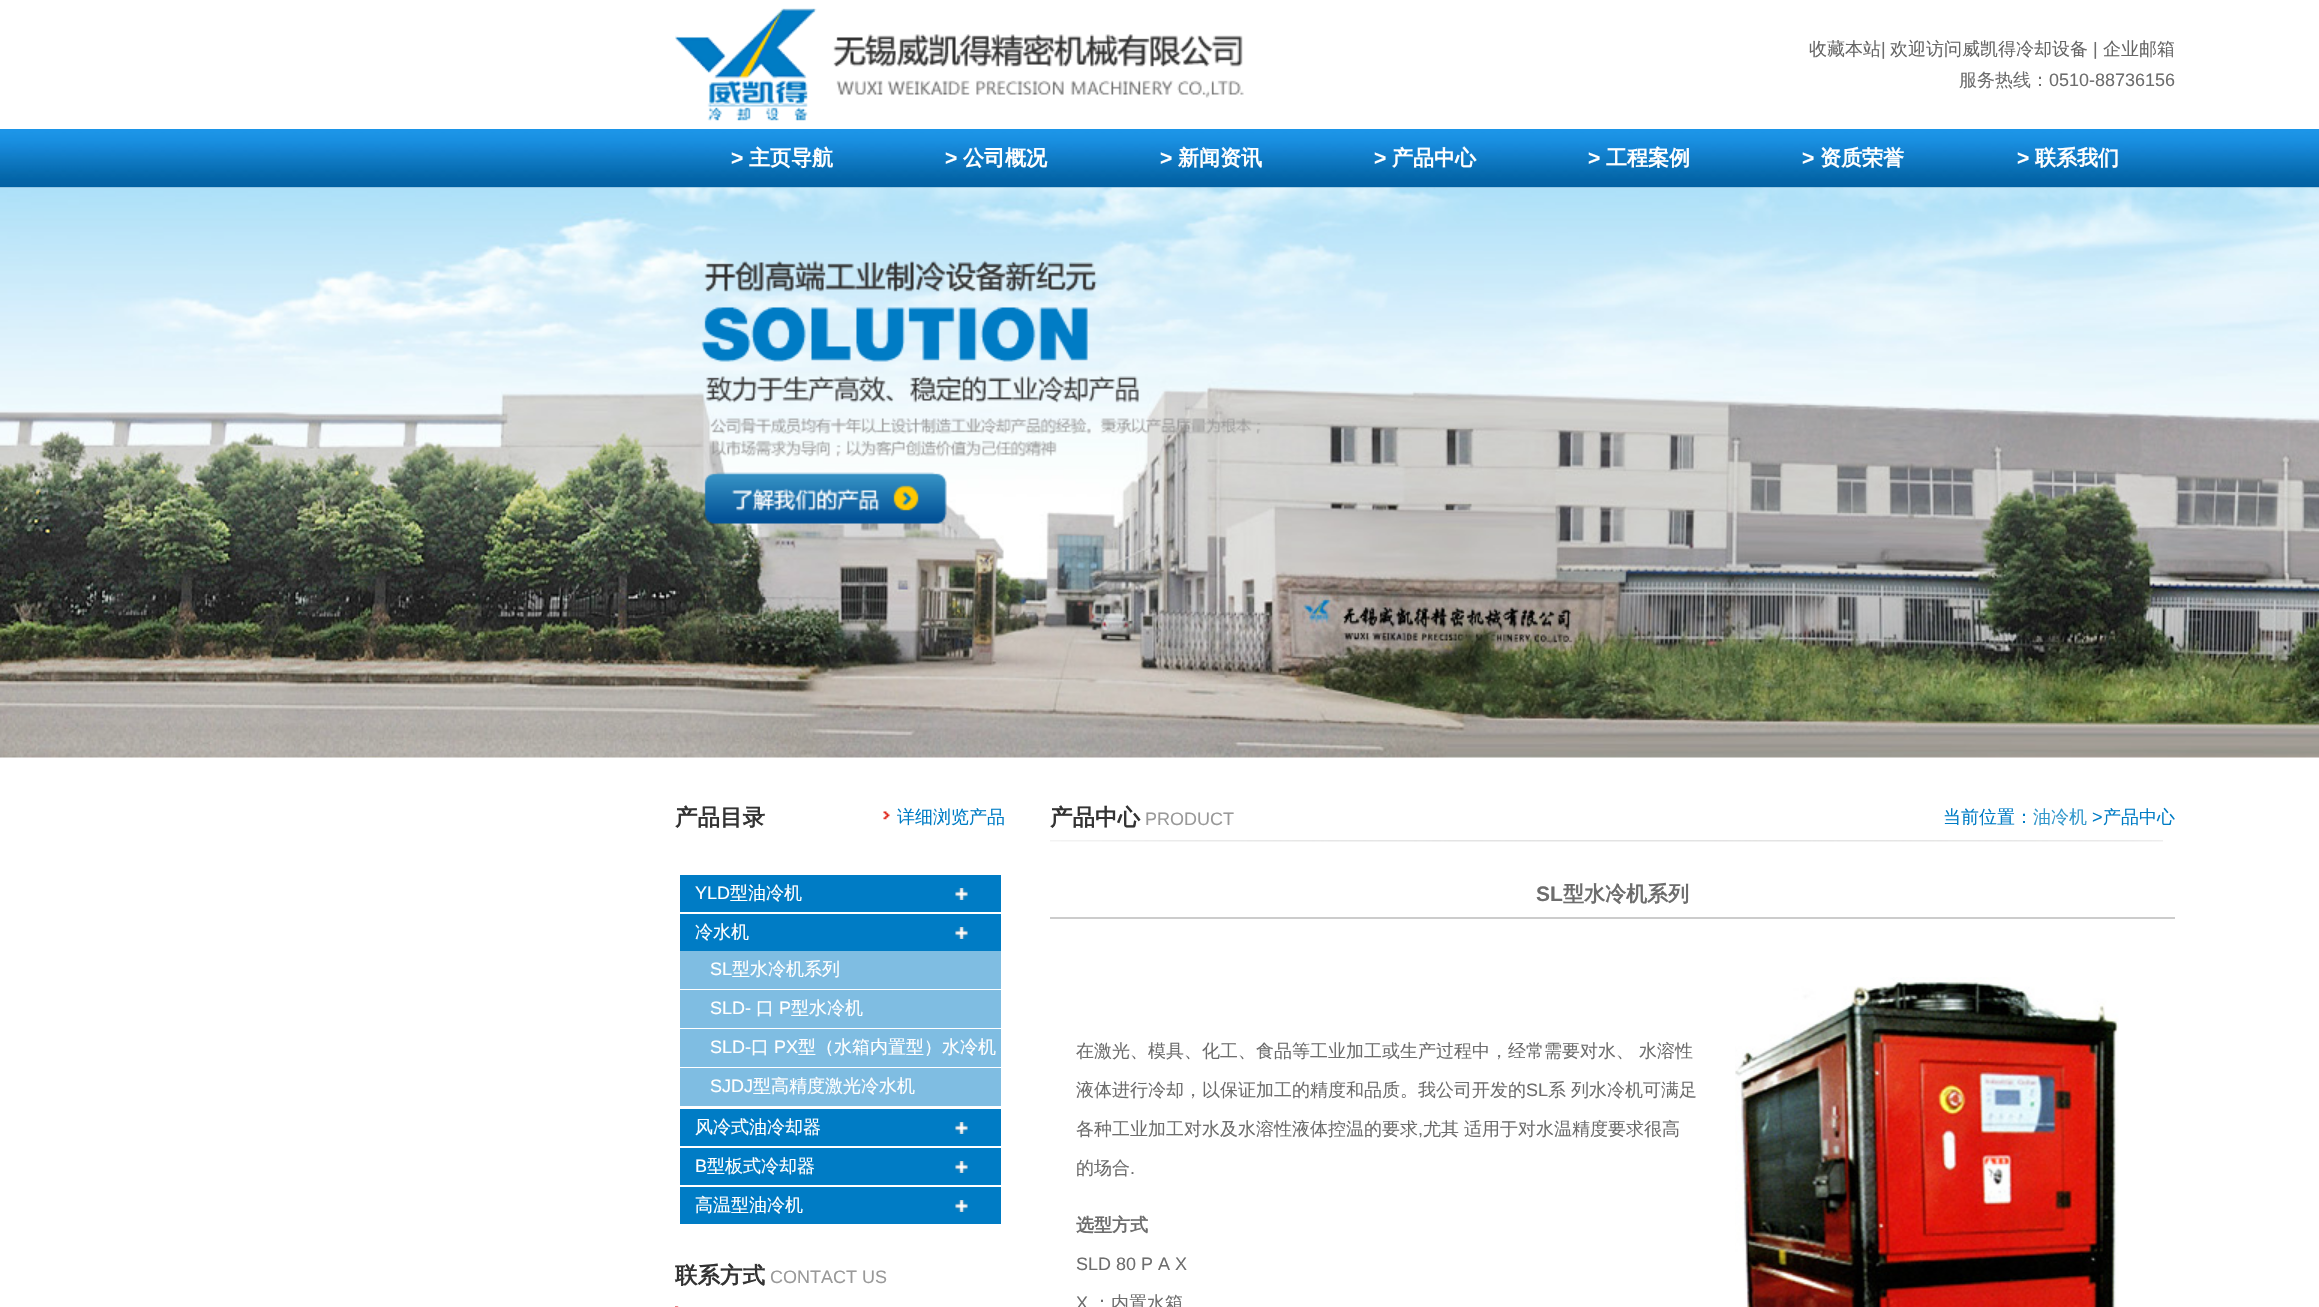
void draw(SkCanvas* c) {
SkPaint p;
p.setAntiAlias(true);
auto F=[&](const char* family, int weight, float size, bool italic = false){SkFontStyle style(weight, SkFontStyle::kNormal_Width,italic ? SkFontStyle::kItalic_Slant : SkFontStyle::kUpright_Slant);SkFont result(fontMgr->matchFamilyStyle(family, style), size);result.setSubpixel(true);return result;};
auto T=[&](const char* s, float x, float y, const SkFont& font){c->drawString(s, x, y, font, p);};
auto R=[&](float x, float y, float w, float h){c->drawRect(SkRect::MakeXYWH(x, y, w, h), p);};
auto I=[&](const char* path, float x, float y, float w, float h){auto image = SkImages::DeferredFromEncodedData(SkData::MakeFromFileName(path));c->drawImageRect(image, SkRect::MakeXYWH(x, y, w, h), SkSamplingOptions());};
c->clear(0xffffffff);
I("1.png",675,8,569,113);
auto f1 = F("WenQuanYi Zen Hei",500,18);
p.setColor(0xff666666);
T("收藏本站",1809,55,f1);
auto f2 = F("Liberation Sans",400,18);
p.setColor(0xff6d6d6d);
T("|",1881,55,f2);
p.setColor(0xff666666);
T("欢迎访问威凯得冷却设备",1890,55,f1);
p.setColor(0xff6d6d6d);
T("|",2093,55,f2);
p.setColor(0xff666666);
T("企业邮箱",2103,55,f1);
p.setColor(0xff6d6d6d);
T("服务热线：",1959,86,f1);
T("0510-88736156",2049,86,f2);
I("2.png",0,129,2319,59);
auto f3 = F("Liberation Sans",700,21);
p.setColor(0xffffffff);
T(">",731,165,f3);
auto f4 = F("WenQuanYi Zen Hei",700,21);
T("主页导航",749,165,f4);
T(">",945,165,f3);
T("公司概况",963,165,f4);
T(">",1160,165,f3);
T("新闻资讯",1178,165,f4);
T(">",1374,165,f3);
T("产品中心",1392,165,f4);
T(">",1588,165,f3);
T("工程案例",1606,165,f4);
T(">",1802,165,f3);
T("资质荣誉",1820,165,f4);
T(">",2017,165,f3);
T("联系我们",2035,165,f4);
I("3.png",0,187,2319,571);
auto f5 = F("WenQuanYi Zen Hei",700,22.5);
p.setColor(0xff333333);
T("产品目录",675,825,f5);
I("4.png",883,811,7,9);
p.setColor(0xff007cc5);
T("详细浏览产品",897,823,f1);
R(680,875,321,37);
I("5.png",955,888,13,12);
p.setColor(0xffffffff);
T("YLD",695,899,f2);
T("型油冷机",730,899,f1);
p.setColor(0xff007cc5);
R(680,914,321,37);
I("5.png",955,927,13,12);
p.setColor(0xffffffff);
T("冷水机",695,938,f1);
p.setColor(0xff7fbde2);
R(680,951,321,38);
p.setColor(0xffffffff);
T("SL",710,975,f2);
T("型水冷机系列",732,975,f1);
p.setColor(0xff7fbde2);
R(680,990,321,38);
p.setColor(0xffffffff);
T("SLD-",710,1014,f2);
T("口",756,1014,f1);
T("P",779,1014,f2);
T("型水冷机",791,1014,f1);
p.setColor(0xff7fbde2);
R(680,1029,321,38);
p.setColor(0xffffffff);
T("SLD-",710,1053,f2);
T("口",751,1053,f1);
T("PX",774,1053,f2);
T("型（水箱内置型）水冷机",798,1053,f1);
p.setColor(0xff7fbde2);
R(680,1068,321,38);
p.setColor(0xffffffff);
T("SJDJ",710,1092,f2);
T("型高精度激光冷水机",753,1092,f1);
p.setColor(0xff007cc5);
R(680,1109,321,37);
I("5.png",955,1122,13,12);
p.setColor(0xffffffff);
T("风冷式油冷却器",695,1133,f1);
p.setColor(0xff007cc5);
R(680,1148,321,37);
I("5.png",955,1161,13,12);
p.setColor(0xffffffff);
T("B",695,1172,f2);
T("型板式冷却器",707,1172,f1);
p.setColor(0xff007cc5);
R(680,1187,321,37);
I("5.png",955,1200,13,12);
p.setColor(0xffffffff);
T("高温型油冷机",695,1211,f1);
p.setColor(0xff333333);
T("联系方式",675,1283,f5);
p.setColor(0xff999999);
T("CONTACT US",770,1283,f2);
I("6.png",675,1306,4,1);
p.setColor(0xff333333);
T("产品中心",1050,825,f5);
p.setColor(0xff999999);
T("PRODUCT",1145,825,f2);
p.setColor(0xff007cc5);
T("当前位置：",1943,823,f1);
p.setColor(0xff3498cc);
T("油冷机",2033,823,f1);
p.setColor(0xff007cc5);
T(">",2092,823,f2);
T("产品中心",2103,823,f1);
I("7.png",1050,840,1113,2);
p.setColor(0xff6d6d6d);
T("SL",1536,901,f3);
T("型水冷机系列",1563,901,f4);
p.setColor(0xffcccccc);
R(1050,917,1125,2);
p.setColor(0xff6d6d6d);
T("在激光、模具、化工、食品等工业加工或生产过程中，经常需要对水、",1076,1057,f1);
T("水溶性",1639,1057,f1);
T("液体进行冷却，以保证加工的精度和品质。我公司开发的",1076,1096,f1);
T("SL",1526,1096,f2);
T("系",1548,1096,f1);
T("列水冷机可满足",1571,1096,f1);
T("各种工业加工对水及水溶性液体控温的要求",1076,1135,f1);
T(",",1418,1135,f2);
T("尤其",1423,1135,f1);
T("适用于对水温精度要求很高",1464,1135,f1);
T("的场合",1076,1174,f1);
T(".",1130,1174,f2);
auto f6 = F("WenQuanYi Zen Hei",700,18);
T("选型方式",1076,1231,f6);
T("SLD 80 P A X",1076,1270,f2);
T("X",1076,1309,f2);
T("：内置水箱",1093,1309,f1);
I("8.png",1735,977,384,330);
}
